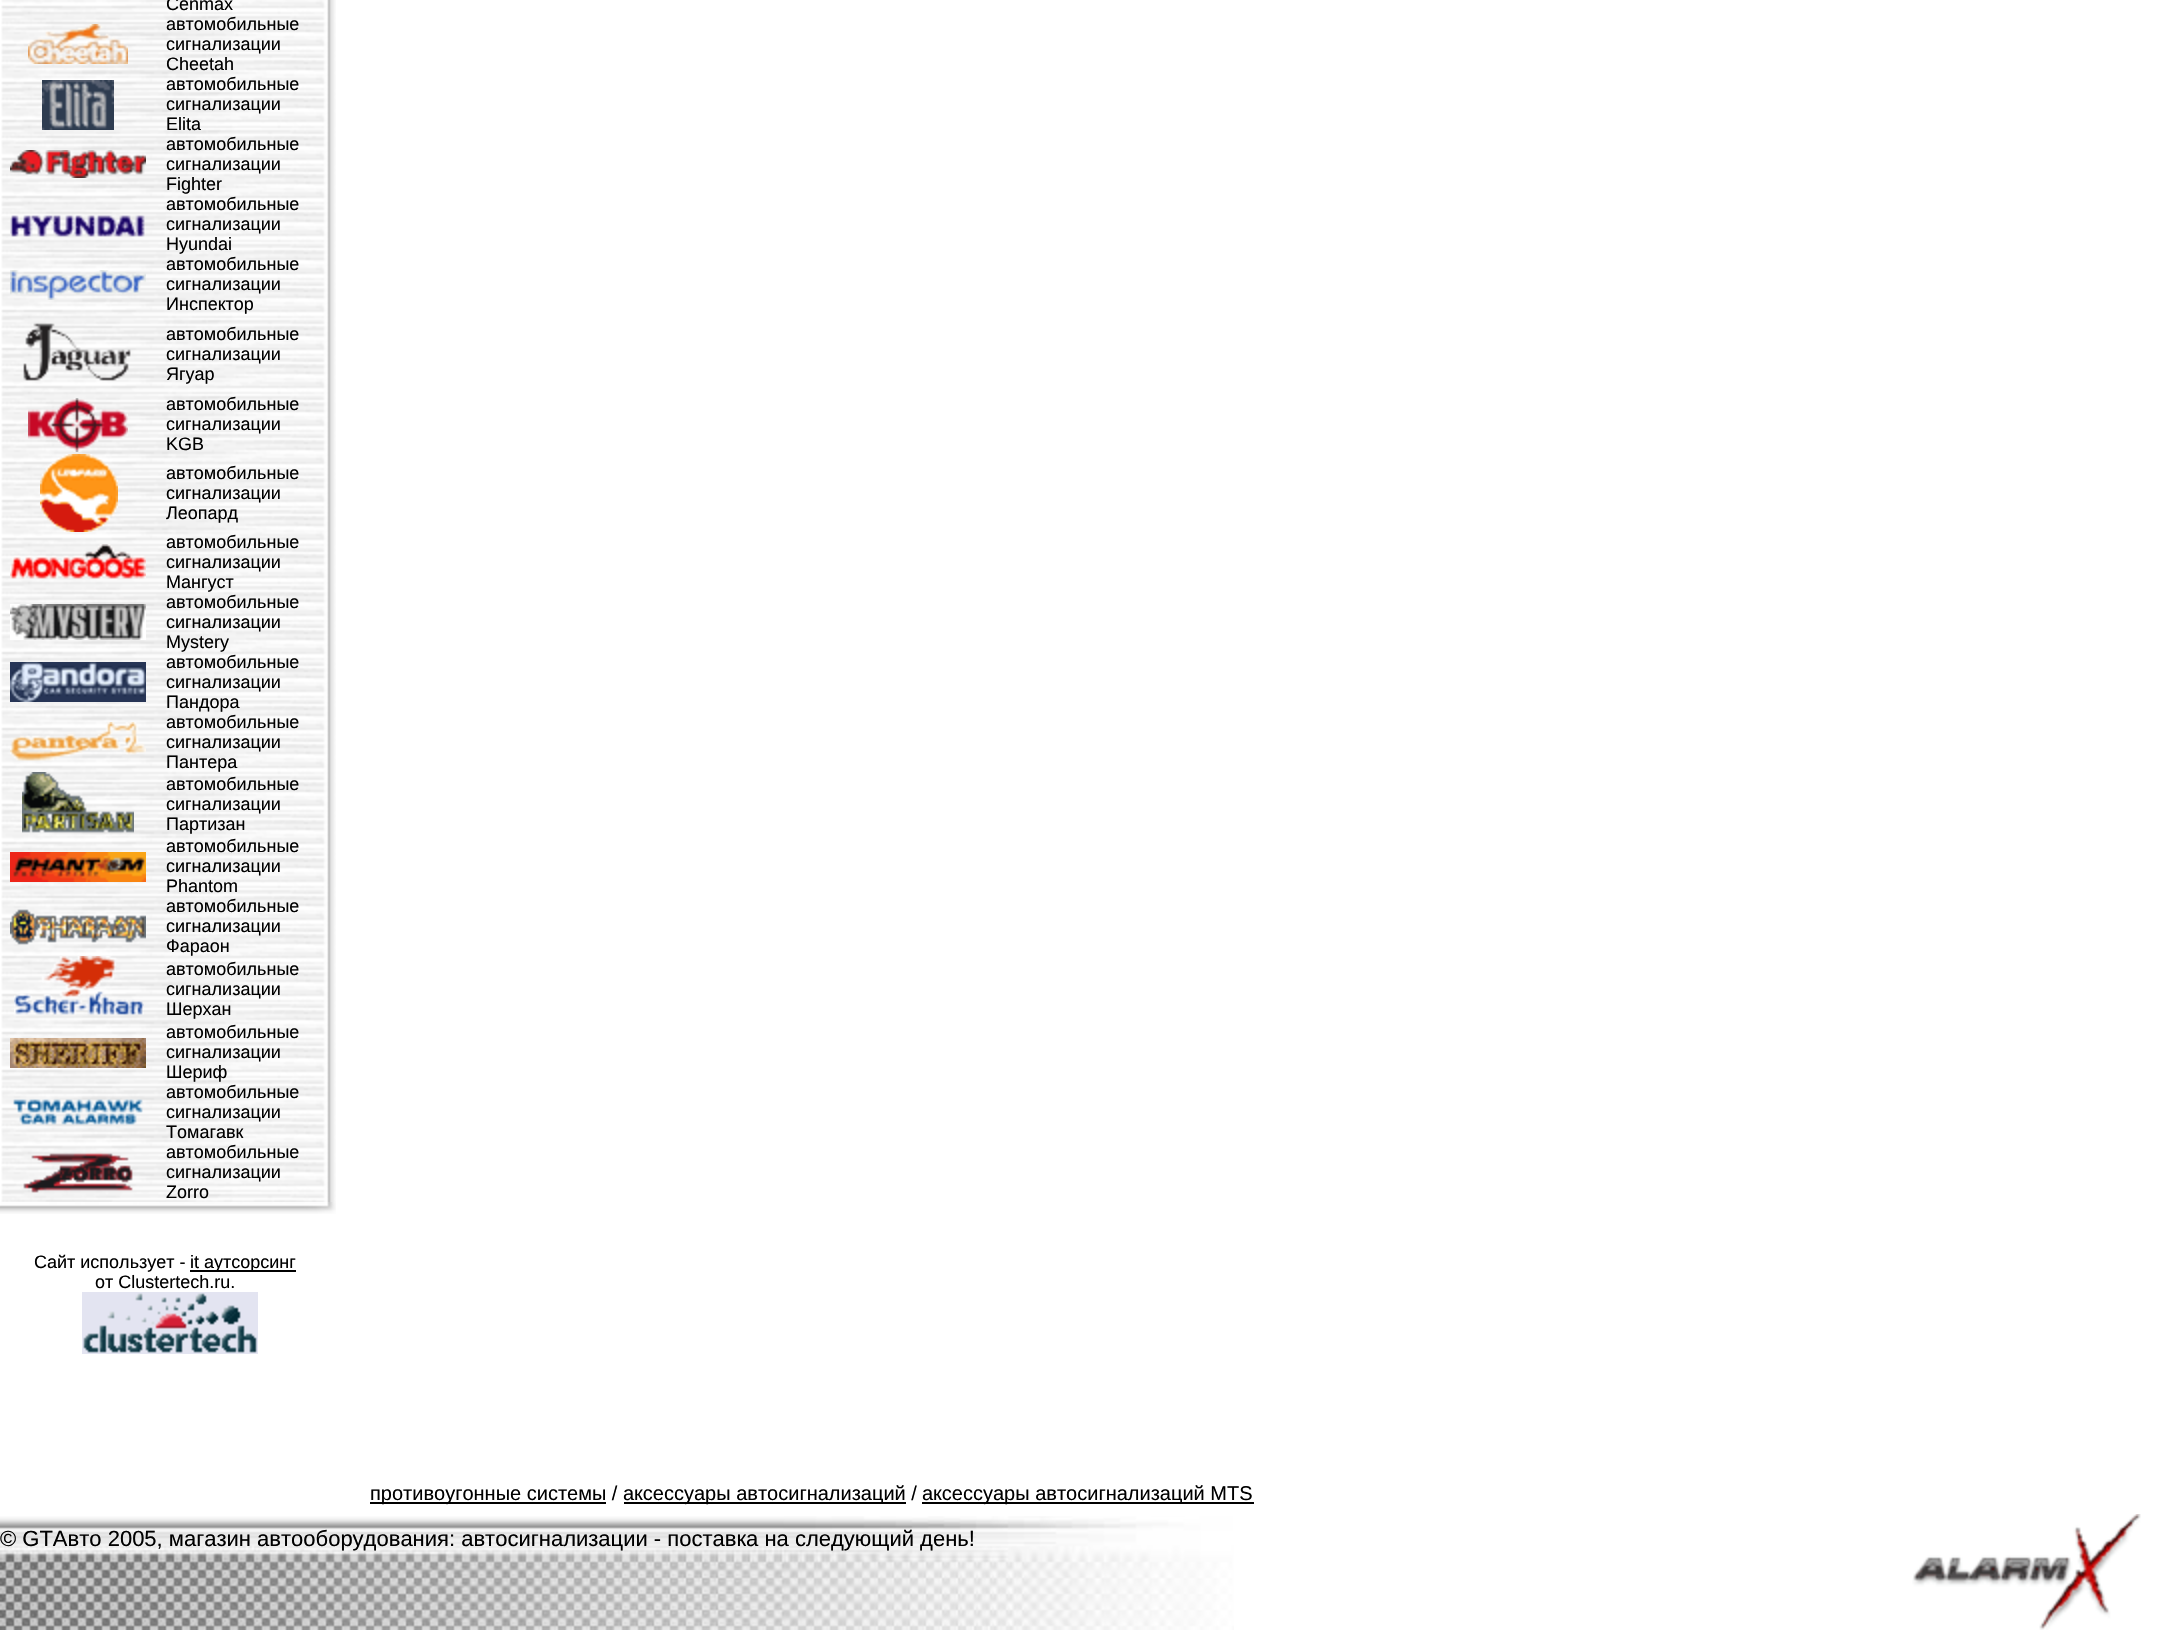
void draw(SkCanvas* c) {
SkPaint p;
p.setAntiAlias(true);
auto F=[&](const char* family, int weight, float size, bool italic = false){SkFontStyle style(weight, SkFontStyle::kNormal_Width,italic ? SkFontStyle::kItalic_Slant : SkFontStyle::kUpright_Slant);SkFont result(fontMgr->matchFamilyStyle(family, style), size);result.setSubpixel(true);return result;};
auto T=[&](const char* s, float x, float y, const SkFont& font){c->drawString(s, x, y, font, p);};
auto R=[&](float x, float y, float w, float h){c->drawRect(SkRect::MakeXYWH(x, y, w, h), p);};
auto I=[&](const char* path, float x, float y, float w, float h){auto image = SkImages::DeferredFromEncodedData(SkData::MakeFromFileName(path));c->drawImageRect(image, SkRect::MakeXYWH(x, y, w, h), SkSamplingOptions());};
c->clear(0xffffffff);
I("1.png",1,0,335,1202);
auto f1 = F("Liberation Sans",400,18);
p.setColor(0xff000000);
T("Cenmax",166,10,f1);
I("2.png",28,24,100,40);
T("автомобильные",166,30,f1);
T("сигнализации",166,50,f1);
T("Cheetah",166,70,f1);
I("3.png",42,80,72,50);
T("автомобильные",166,90,f1);
T("сигнализации",166,110,f1);
T("Elita",166,130,f1);
I("4.png",10,150,136,28);
T("автомобильные",166,150,f1);
T("сигнализации",166,170,f1);
T("Fighter",166,190,f1);
I("5.png",10,215,135,22);
T("автомобильные",166,210,f1);
T("сигнализации",166,230,f1);
T("Hyundai",166,250,f1);
I("6.png",10,270,136,30);
T("автомобильные",166,270,f1);
T("сигнализации",166,290,f1);
T("Инспектор",166,310,f1);
I("7.png",23,323,108,58);
T("автомобильные",166,340,f1);
T("сигнализации",166,360,f1);
T("Ягуар",166,380,f1);
I("8.png",28,398,100,54);
T("автомобильные",166,410,f1);
T("сигнализации",166,430,f1);
T("KGB",166,450,f1);
I("9.png",40,454,78,78);
T("автомобильные",166,479,f1);
T("сигнализации",166,499,f1);
T("Леопард",166,519,f1);
I("10.png",10,544,136,35);
T("автомобильные",166,548,f1);
T("сигнализации",166,568,f1);
T("Мангуст",166,588,f1);
I("11.png",10,604,136,36);
T("автомобильные",166,608,f1);
T("сигнализации",166,628,f1);
T("Mystery",166,648,f1);
I("12.png",10,662,136,40);
T("автомобильные",166,668,f1);
T("сигнализации",166,688,f1);
T("Пандора",166,708,f1);
I("13.png",10,722,136,39);
T("автомобильные",166,728,f1);
T("сигнализации",166,748,f1);
T("Пантера",166,768,f1);
I("14.png",22,772,112,61);
T("автомобильные",166,790,f1);
T("сигнализации",166,810,f1);
T("Партизан",166,830,f1);
I("15.png",10,852,136,30);
T("автомобильные",166,852,f1);
T("сигнализации",166,872,f1);
T("Phantom",166,892,f1);
I("16.png",10,909,136,36);
T("автомобильные",166,912,f1);
T("сигнализации",166,932,f1);
T("Фараон",166,952,f1);
I("17.png",14,956,130,59);
T("автомобильные",166,975,f1);
T("сигнализации",166,995,f1);
T("Шерхан",166,1015,f1);
I("18.png",10,1038,136,30);
T("автомобильные",166,1038,f1);
T("сигнализации",166,1058,f1);
T("Шериф",166,1078,f1);
I("19.png",13,1099,130,26);
T("автомобильные",166,1098,f1);
T("сигнализации",166,1118,f1);
T("Томагавк",166,1138,f1);
I("20.png",23,1153,110,40);
T("автомобильные",166,1158,f1);
T("сигнализации",166,1178,f1);
T("Zorro",166,1198,f1);
I("21.png",0,1202,336,12);
T("Сайт использует -",34,1268,f1);
R(190,1270,106,2);
T("it аутсорсинг",190,1268,f1);
T("от Clustertech.ru.",95,1288,f1);
I("22.png",82,1292,176,62);
R(370,1502,236,2);
auto f2 = F("Liberation Sans",400,20);
T("противоугонные системы /",370,1500,f2);
R(624,1502,282,2);
T("аксессуары автосигнализаций /",623,1500,f2);
R(922,1502,332,2);
T("аксессуары автосигнализаций MTS",922,1500,f2);
I("23.png",0,1516,1234,114);
auto f3 = F("Liberation Sans",400,22);
T("© GTАвто 2005, магазин автооборудования: автосигнализации - поставка на следующий день!",0,1546,f3);
I("24.png",1912,1514,229,116);
}
